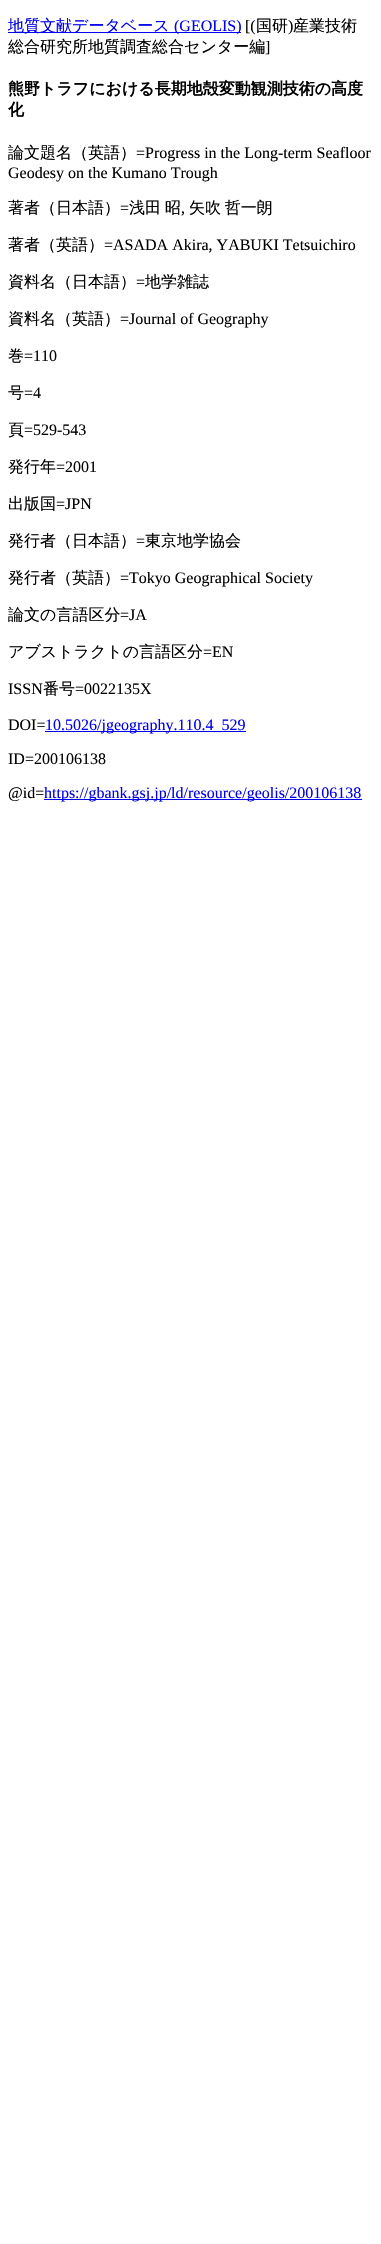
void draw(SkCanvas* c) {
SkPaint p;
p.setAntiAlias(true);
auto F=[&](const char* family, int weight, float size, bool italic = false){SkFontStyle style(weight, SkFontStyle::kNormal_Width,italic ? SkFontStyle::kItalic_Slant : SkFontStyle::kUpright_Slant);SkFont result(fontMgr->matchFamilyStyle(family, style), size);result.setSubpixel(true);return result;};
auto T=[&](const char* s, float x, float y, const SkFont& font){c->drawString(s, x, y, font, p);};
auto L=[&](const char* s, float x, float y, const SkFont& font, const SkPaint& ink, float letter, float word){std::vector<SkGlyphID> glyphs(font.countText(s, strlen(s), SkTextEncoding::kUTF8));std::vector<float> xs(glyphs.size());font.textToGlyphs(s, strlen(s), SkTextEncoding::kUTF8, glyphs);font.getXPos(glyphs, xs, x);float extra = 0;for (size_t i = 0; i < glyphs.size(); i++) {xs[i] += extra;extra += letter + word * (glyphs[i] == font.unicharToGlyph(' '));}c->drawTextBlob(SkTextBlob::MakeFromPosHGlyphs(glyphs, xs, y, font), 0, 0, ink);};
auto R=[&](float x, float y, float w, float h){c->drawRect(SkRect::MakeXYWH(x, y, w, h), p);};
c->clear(0xffffffff);
p.setColor(0xff0000ee);
R(8,32,233,1);
auto f1 = F("WenQuanYi Zen Hei",500,16);
T("地質文献データベース",8,31,f1);
auto f2 = F("Liberation Serif",400,16);
T("(GEOLIS)",174,31,f2);
p.setColor(0xff000000);
T("[(",245,31,f2);
T("国研",256,31,f1);
T(")",288,31,f2);
T("産業技術",293,31,f1);
T("総合研究所地質調査総合センター編",8,52,f1);
T("]",265,52,f2);
auto f3 = F("WenQuanYi Zen Hei",700,16);
T("熊野トラフにおける長期地殻変動観測技術の高度",8,94,f3);
T("化",8,115,f3);
T("論文題名（英語）",8,158,f1);
T("=Progress in the Long-term Seafloor",136,158,f2);
T("Geodesy on the Kumano Trough",8,178,f2);
T("著者（日本語）",8,213,f1);
T("=",120,213,f2);
L("浅田 昭",129,213,f1,p,0,-1);
L("矢吹 哲一朗",189,213,f1,p,0,-1);
T(",",181,213,f2);
T("著者（英語）",8,250,f1);
T("=ASADA Akira, YABUKI Tetsuichiro",104,250,f2);
T("資料名（日本語）",8,287,f1);
T("=",136,287,f2);
T("地学雑誌",145,287,f1);
T("資料名（英語）",8,324,f1);
T("=Journal of Geography",120,324,f2);
T("巻",8,361,f1);
T("=110",24,361,f2);
T("号",8,398,f1);
T("=4",24,398,f2);
T("頁",8,435,f1);
T("=529-543",24,435,f2);
T("発行年",8,472,f1);
T("=2001",56,472,f2);
T("出版国",8,509,f1);
T("=JPN",56,509,f2);
T("発行者（日本語）",8,546,f1);
T("=",136,546,f2);
T("東京地学協会",145,546,f1);
T("発行者（英語）",8,583,f1);
T("=Tokyo Geographical Society",120,583,f2);
T("論文の言語区分",8,620,f1);
T("=JA",120,620,f2);
T("アブストラクトの言語区分",8,657,f1);
T("=EN",203,657,f2);
T("ISSN",8,694,f2);
T("番号",43,694,f1);
T("=0022135X",75,694,f2);
T("DOI=",8,730,f2);
p.setColor(0xff0000ee);
R(45,731,201,1);
T("10.5026/jgeography.110.4_529",45,730,f2);
p.setColor(0xff000000);
T("ID=200106138",8,764,f2);
T("@id=",8,798,f2);
p.setColor(0xff0000ee);
R(44,799,318,1);
T("https://gbank.gsj.jp/ld/resource/geolis/200106138",44,798,f2);
}
